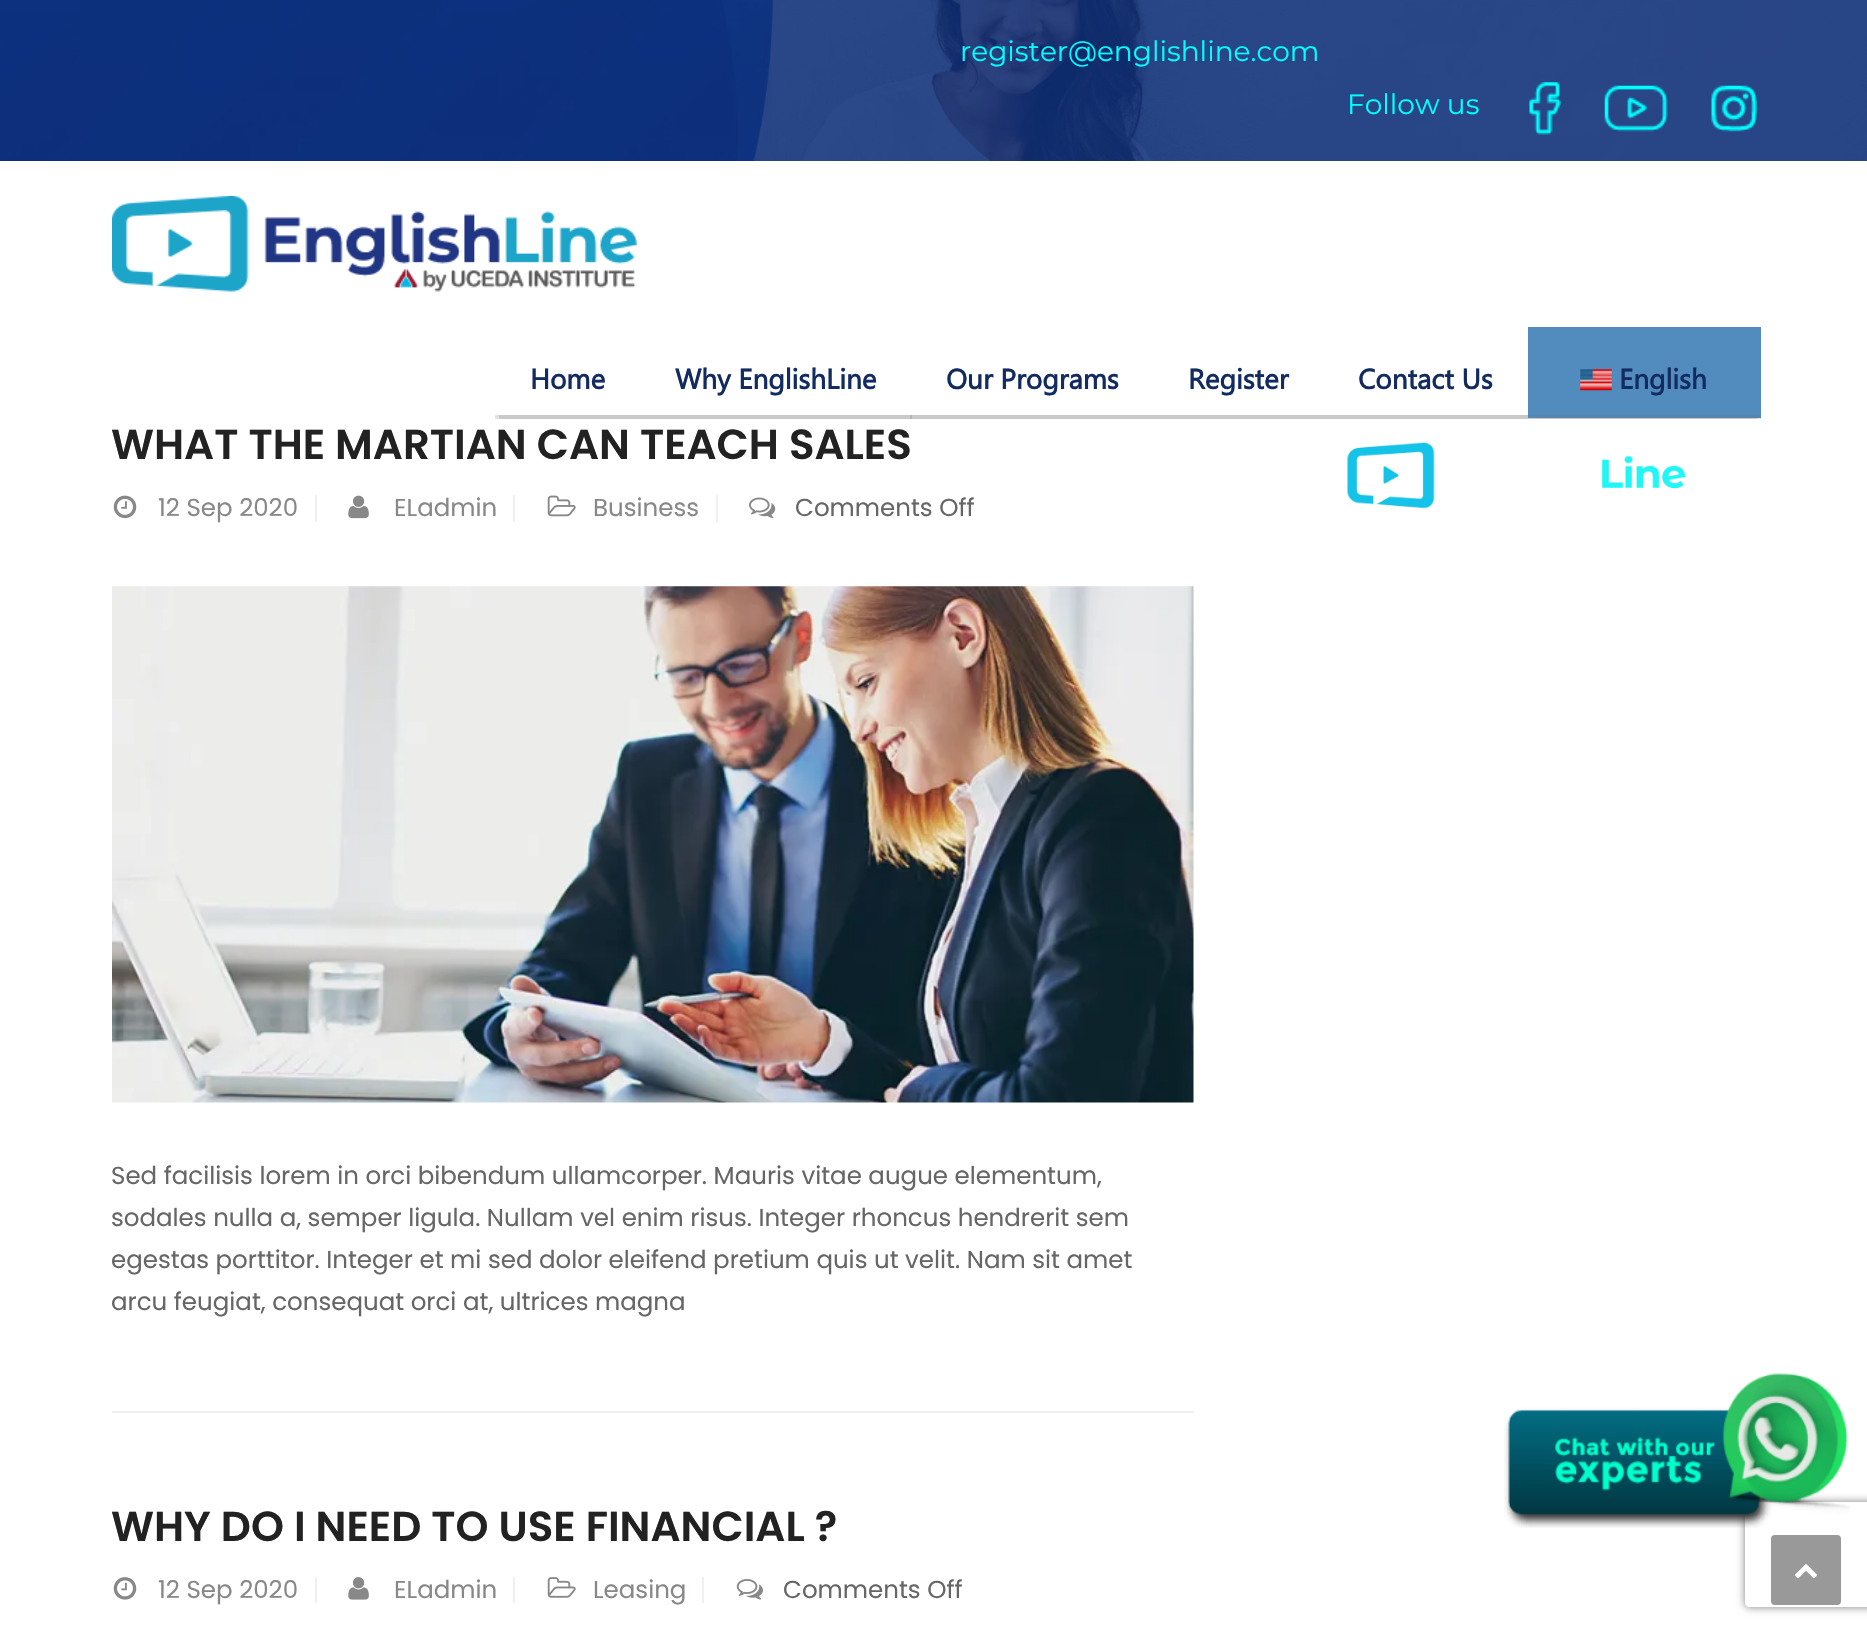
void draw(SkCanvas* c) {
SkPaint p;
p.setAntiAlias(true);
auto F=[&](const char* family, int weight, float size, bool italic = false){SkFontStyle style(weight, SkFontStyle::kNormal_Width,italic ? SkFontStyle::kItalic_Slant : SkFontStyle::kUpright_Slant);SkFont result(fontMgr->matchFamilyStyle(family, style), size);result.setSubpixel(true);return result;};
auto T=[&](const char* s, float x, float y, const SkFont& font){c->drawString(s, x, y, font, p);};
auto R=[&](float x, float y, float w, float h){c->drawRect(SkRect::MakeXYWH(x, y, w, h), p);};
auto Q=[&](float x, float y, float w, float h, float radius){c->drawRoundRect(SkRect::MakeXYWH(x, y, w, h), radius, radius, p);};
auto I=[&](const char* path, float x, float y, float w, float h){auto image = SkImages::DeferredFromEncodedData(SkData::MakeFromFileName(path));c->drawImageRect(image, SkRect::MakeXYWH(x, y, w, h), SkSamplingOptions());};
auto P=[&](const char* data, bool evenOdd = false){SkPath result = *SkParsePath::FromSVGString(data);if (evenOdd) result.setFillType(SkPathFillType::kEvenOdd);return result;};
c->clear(0xffffffff);
I("1.png",0,0,1867,161);
p.setColor(0xe00e2f78);
R(0,0,1867,161);
auto f1 = F("Montserrat",400,28);
p.setColor(0xff00ffff);
T("register@englishline.com",960,61,f1);
T("Follow us",1347,114,f1);
I("2.png",1529,82,32,53);
I("3.png",1604,85,64,47);
I("4.png",1711,85,46,47);
I("5.png",112,196,525,96);
p.setColor(0xffe1e1e1);
R(499,415,1258,4);
p.setColor(0x36707070);
R(495,415,146,4);
auto f2 = F("Segoe UI",700,28);
p.setColor(0xff122b61);
T("Home",530,389,f2);
p.setColor(0xffc9c9c9);
R(641,415,271,4);
p.setColor(0xff122b61);
T("Why EnglishLine",675,389,f2);
p.setColor(0x36707070);
R(910,415,243,4);
p.setColor(0xff122b61);
T("Our Programs",946,389,f2);
p.setColor(0xffc9c9c9);
R(1153,415,375,4);
p.setColor(0xff122b61);
T("Register",1188,389,f2);
T("Contact Us",1358,389,f2);
p.setColor(0xff528cbf);
R(1528,327,233,91);
p.setColor(0x36707070);
R(1528,415,233,4);
I("6.png",1580,369,32,22);
p.setColor(0xff122b61);
T("English",1619,389,f2);
p.setColor(0xffeff0f4);
R(112,1411,1082,2);
auto f3 = F("Poppins",600,42);
p.setColor(0xff222222);
T("WHAT THE MARTIAN CAN TEACH SALES",111,459,f3);
I("7.png",113,495,24,24);
auto f4 = F("Poppins",400,24.5);
p.setColor(0xff888888);
T("12 Sep 2020",158,516,f4);
p.setColor(0xffeff0f4);
R(315,495,2,27);
I("8.png",348,495,21,24);
p.setColor(0xff888888);
T("ELadmin",394,516,f4);
p.setColor(0xffeff0f4);
R(513,495,2,27);
I("9.png",547,495,29,22);
p.setColor(0xff888888);
T("Business",593,516,f4);
p.setColor(0xffeff0f4);
R(716,495,2,27);
I("10.png",749,497,27,22);
p.setColor(0xff666666);
T("Comments Off",795,516,f4);
I("11.png",112,586,1082,517);
T("Sed facilisis lorem in orci bibendum ullamcorper. Mauris vitae augue elementum,",111,1184,f4);
T("sodales nulla a, semper ligula. Nullam vel enim risus. Integer rhoncus hendrerit sem",111,1226,f4);
T("egestas porttitor. Integer et mi sed dolor eleifend pretium quis ut velit. Nam sit amet",111,1268,f4);
T("arcu feugiat, consequat orci at, ultrices magna",111,1310,f4);
p.setColor(0xff222222);
T("WHY DO I NEED TO USE FINANCIAL ?",111,1541,f3);
I("12.png",113,1577,24,23);
p.setColor(0xff888888);
T("12 Sep 2020",158,1598,f4);
p.setColor(0xffeff0f4);
R(315,1577,2,26);
I("13.png",348,1577,21,23);
p.setColor(0xff888888);
T("ELadmin",394,1598,f4);
p.setColor(0xffeff0f4);
R(513,1577,2,26);
I("14.png",547,1577,29,21);
p.setColor(0xff888888);
T("Leasing",593,1598,f4);
p.setColor(0xffeff0f4);
R(702,1577,2,26);
I("15.png",736,1579,27,21);
p.setColor(0xff666666);
T("Comments Off",783,1598,f4);
I("16.png",1347,442,339,67);
c->save();
c->clipPath(P("M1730 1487h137v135h-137zm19 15h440c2 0 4 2 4 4v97c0 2-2 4-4 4h-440c-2 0-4-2-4-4v-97c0-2 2-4 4-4z",true),true);
p.setColor(0xff808080);
p.setMaskFilter(SkMaskFilter::MakeBlur(kNormal_SkBlurStyle, 4.5));
c->drawRoundRect(SkRect::MakeXYWH(1745,1502,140,105),4,4,p);
p.setMaskFilter(nullptr);
c->restore();
I("17.png",1504,1373,346,155);
p.setColor(0xff999999);
Q(1771,1535,70,70,4);
I("18.png",1795,1564,22,15);
}
